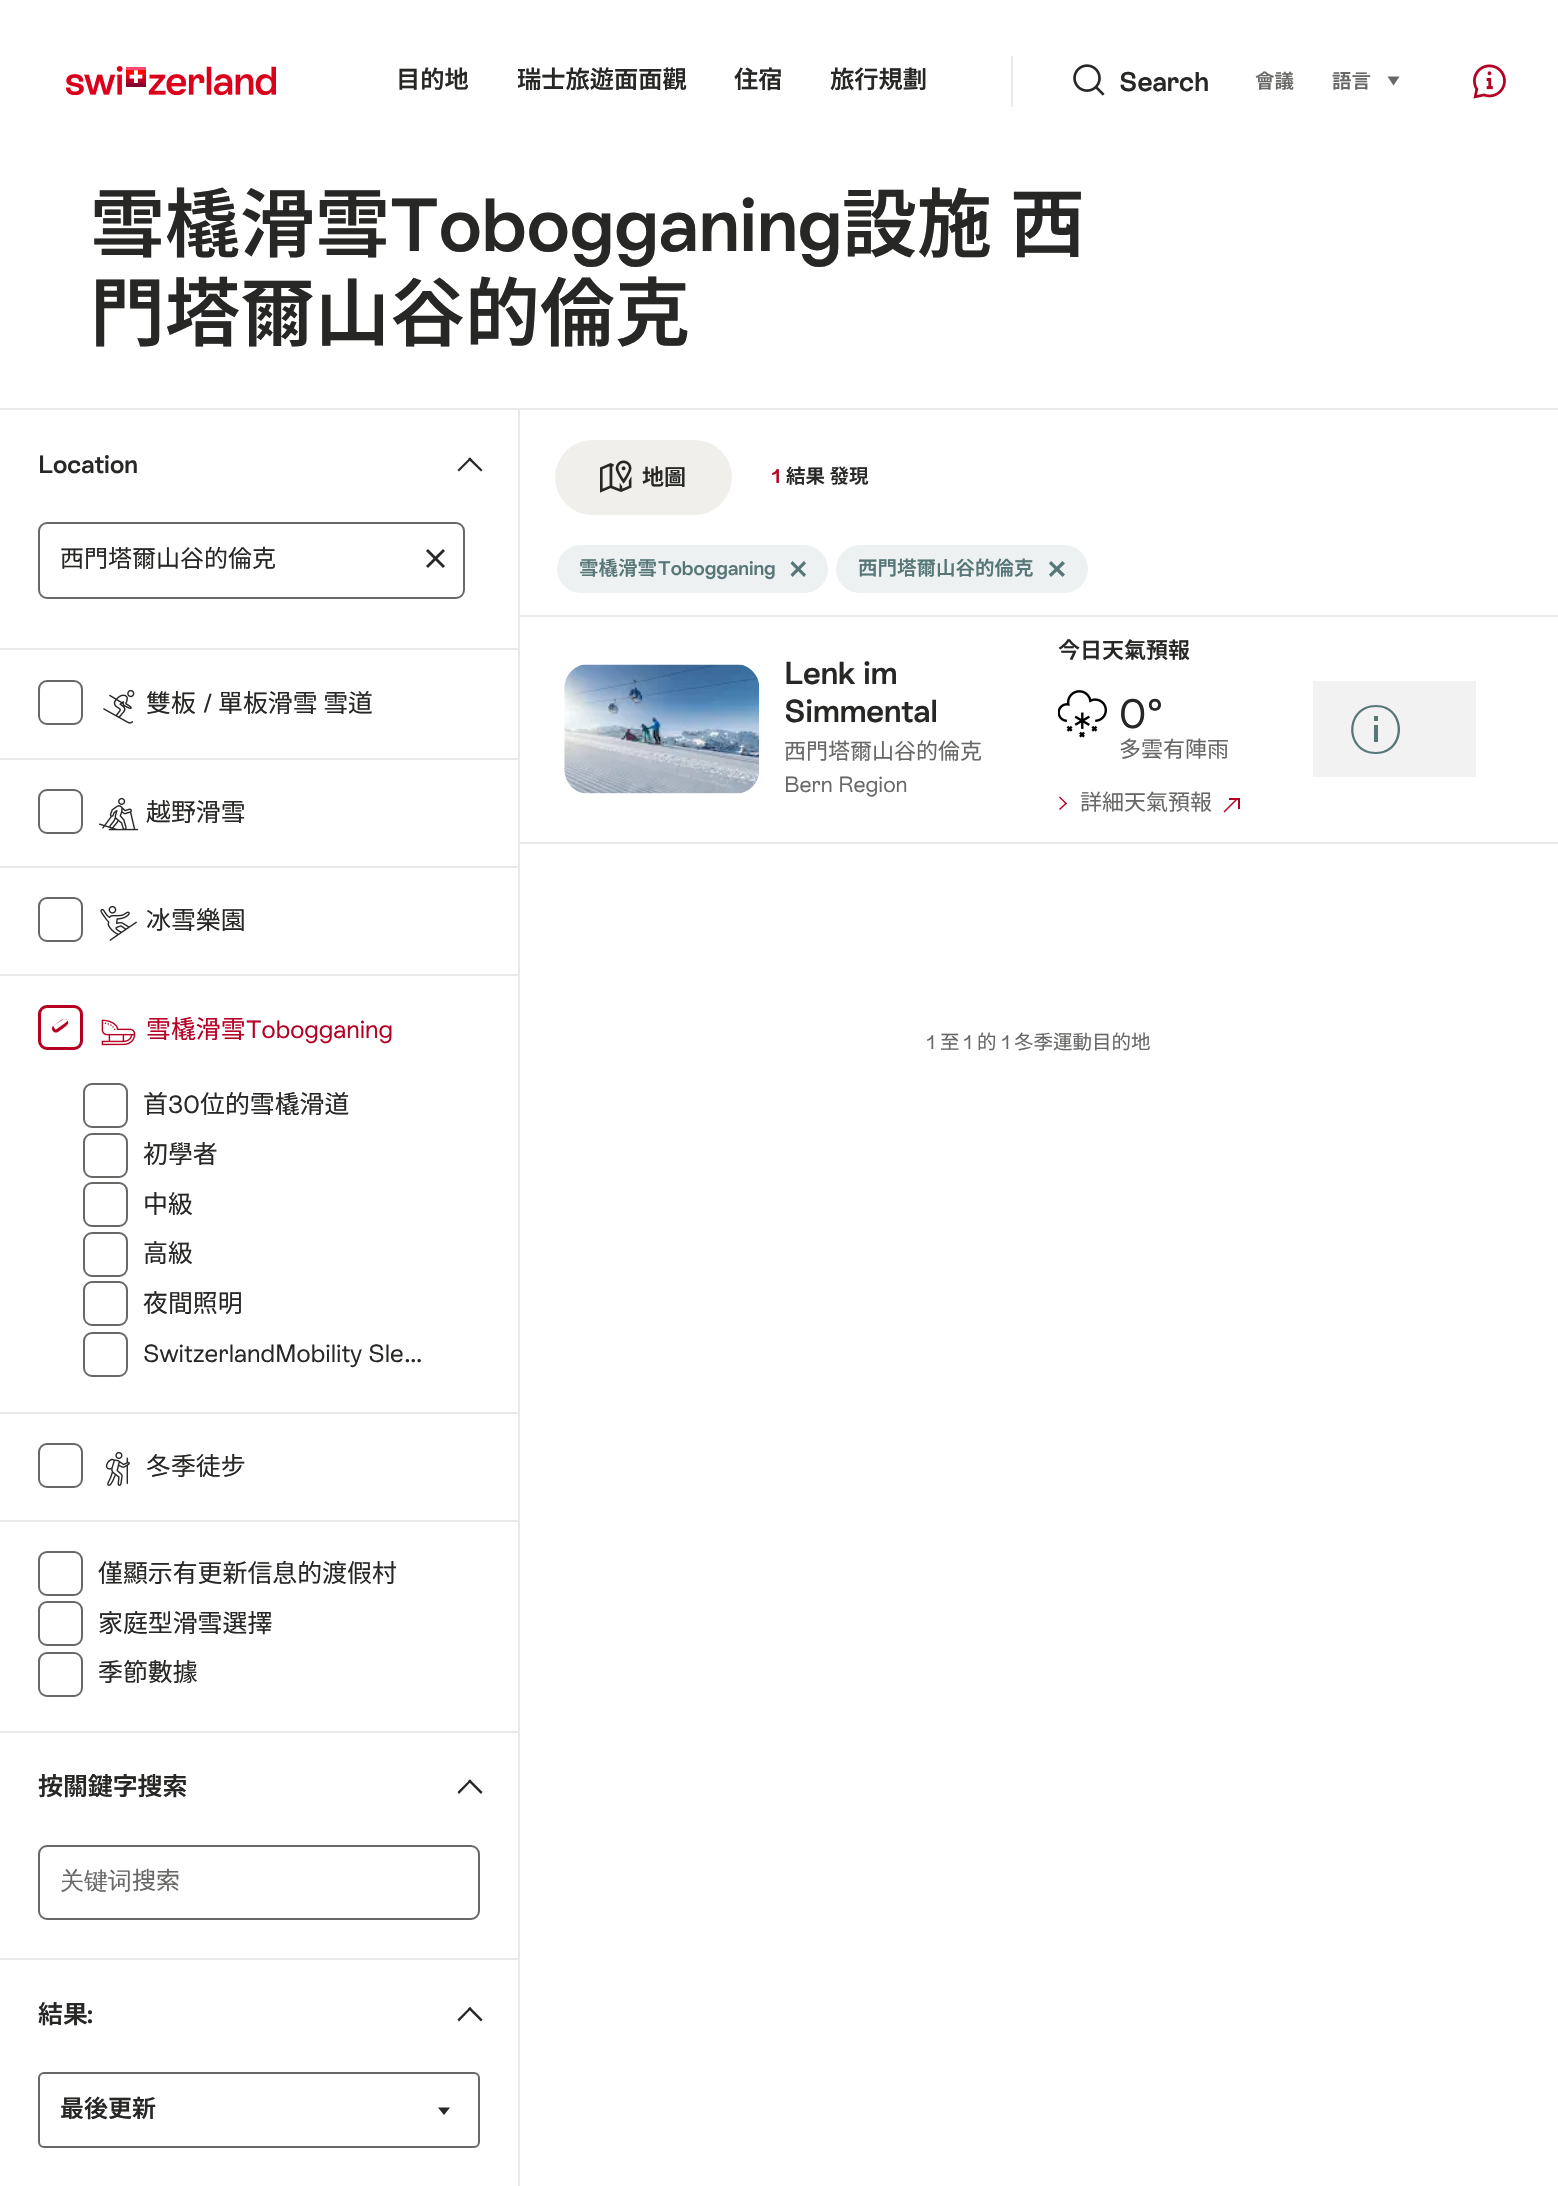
void draw(SkCanvas* c) {
SkPaint p;
p.setAntiAlias(true);
auto F=[&](const char* family, int weight, float size, bool italic = false){SkFontStyle style(weight, SkFontStyle::kNormal_Width,italic ? SkFontStyle::kItalic_Slant : SkFontStyle::kUpright_Slant);SkFont result(fontMgr->matchFamilyStyle(family, style), size);result.setSubpixel(true);return result;};
auto T=[&](const char* s, float x, float y, const SkFont& font){c->drawString(s, x, y, font, p);};
auto L=[&](const char* s, float x, float y, const SkFont& font, const SkPaint& ink, float letter, float word){std::vector<SkGlyphID> glyphs(font.countText(s, strlen(s), SkTextEncoding::kUTF8));std::vector<float> xs(glyphs.size());font.textToGlyphs(s, strlen(s), SkTextEncoding::kUTF8, glyphs);font.getXPos(glyphs, xs, x);float extra = 0;for (size_t i = 0; i < glyphs.size(); i++) {xs[i] += extra;extra += letter + word * (glyphs[i] == font.unicharToGlyph(' '));}c->drawTextBlob(SkTextBlob::MakeFromPosHGlyphs(glyphs, xs, y, font), 0, 0, ink);};
auto R=[&](float x, float y, float w, float h){c->drawRect(SkRect::MakeXYWH(x, y, w, h), p);};
auto Q=[&](float x, float y, float w, float h, float radius){c->drawRoundRect(SkRect::MakeXYWH(x, y, w, h), radius, radius, p);};
auto I=[&](const char* path, float x, float y, float w, float h){auto image = SkImages::DeferredFromEncodedData(SkData::MakeFromFileName(path));c->drawImageRect(image, SkRect::MakeXYWH(x, y, w, h), SkSamplingOptions());};
auto P=[&](const char* data, bool evenOdd = false){SkPath result = *SkParsePath::FromSVGString(data);if (evenOdd) result.setFillType(SkPathFillType::kEvenOdd);return result;};
c->clear(0xffffffff);
I("1.png",66,66,210,30);
auto f1 = F("Noto Sans KR",600,24.25);
p.setColor(0xff272726);
T("目的地",396,88,f1);
T("瑞士旅遊面面觀",517,88,f1);
T("住宿",734,88,f1);
T("旅行規劃",830,88,f1);
p.setColor(0xffe9e9e9);
R(1011,56,2,51);
I("2.png",1073,64,32,32);
auto f2 = F("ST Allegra",600,27);
p.setColor(0xff272726);
T("Search",1119,91,f2);
auto f3 = F("Noto Sans KR",600,19.5);
p.setColor(0xff686867);
T("會議",1255,88,f3);
T("語言",1332,88,f3);
c->drawPath(P("M1387.5 76.5h12l-6 9z"),p);
I("3.png",1473,64,33,35);
p.setColor(0xffe9e9e9);
R(0,408,1558,2);
auto f4 = F("Noto Sans KR",600,75);
p.setColor(0xff272726);
T("雪橇滑雪",90,251,f4);
auto f5 = F("ST Allegra",600,75);
T("Tobogganing",390,251,f5);
L("設施 西",842,251,f4,p,0,1);
T("門塔爾山谷的倫克",90,340,f4);
p.setColor(0xffe9e9e9);
R(519,615,1039,2);
R(519,842,1039,2);
R(518,410,2,1776);
R(0,648,518,2);
auto f6 = F("ST Allegra",600,24.9);
p.setColor(0xff272726);
T("Location",38,473,f6);
c->drawPath(P("M470 457.5l12.5 12.5l-1.5 1.5l-13-12.5z"),p);
c->drawPath(P("M470 457.5l1.5 1.5l-12.5 12.5l-1.5-1.5z"),p);
p.setStroke(true);
p.setStrokeWidth(2);
p.setColor(0xff686867);
c->drawRoundRect(SkRect::MakeXYWH(39,523,425,75),8,8,p);
auto f7 = F("Noto Sans KR",400,24);
p.setStroke(false);
p.setColor(0xff272726);
T("西門塔爾山谷的倫克",60,567,f7);
c->drawPath(P("M428 549l17 17l-2 2l-17-17z"),p);
c->drawPath(P("M426 566l17-17l2 2l-17 17z"),p);
p.setColor(0xffe9e9e9);
R(0,758,518,2);
p.setStroke(true);
p.setColor(0xff686867);
c->drawRoundRect(SkRect::MakeXYWH(39,681,43,43),8,8,p);
I("4.png",103,689,32,35);
auto f8 = F("Noto Sans KR",400,24.9);
p.setStroke(false);
p.setColor(0xff272726);
T("雙板",146,712,f8);
auto f9 = F("ST Allegra",400,24.9);
T("/",203,712,f9);
T("單板滑雪 雪道",218,712,f8);
p.setColor(0xffe9e9e9);
R(0,866,518,2);
p.setStroke(true);
p.setColor(0xff686867);
c->drawRoundRect(SkRect::MakeXYWH(39,790,43,43),8,8,p);
I("5.png",99,797,40,34);
p.setStroke(false);
p.setColor(0xff272726);
T("越野滑雪",146,821,f8);
p.setColor(0xffe9e9e9);
R(0,974,518,2);
p.setStroke(true);
p.setColor(0xff686867);
c->drawRoundRect(SkRect::MakeXYWH(39,898,43,43),8,8,p);
I("6.png",100,905,37,36);
p.setStroke(false);
p.setColor(0xff272726);
T("冰雪樂園",146,929,f8);
p.setColor(0xffe9e9e9);
R(0,1412,518,2);
p.setStroke(true);
p.setStrokeWidth(3);
p.setColor(0xffb50024);
c->drawRoundRect(SkRect::MakeXYWH(39.5,1006.5,42,42),7.5,7.5,p);
I("7.png",101,1019,35,27);
p.setStroke(false);
T("雪橇滑雪",146,1038,f8);
T("Tobogganing",246,1038,f9);
c->drawPath(P("M53.5 1025.5l9.5-6c1-1 3-.5 4 .5c3.5 3.5-1 6-3.5 8l-5.5 4c-4 2.5-8.5-3.5-4.5-6.5zm0 0l8.5-6c2-1 4-.5 5.5 1c0 .5-1 1.5-3 3l-8.5 6c0 0-.5 0-1-.5c-1-1.5-2-3-1.5-3.5z",true),p);
p.setStroke(true);
p.setStrokeWidth(2);
p.setColor(0xff686867);
c->drawRoundRect(SkRect::MakeXYWH(84,1084,43,43),8,8,p);
p.setStroke(false);
p.setColor(0xff272726);
T("首",143,1113,f8);
T("30",168,1113,f9);
T("位的雪橇滑道",200,1113,f8);
p.setStroke(true);
p.setColor(0xff686867);
c->drawRoundRect(SkRect::MakeXYWH(84,1134,43,43),8,8,p);
p.setStroke(false);
p.setColor(0xff272726);
T("初學者",143,1163,f8);
p.setStroke(true);
p.setColor(0xff686867);
c->drawRoundRect(SkRect::MakeXYWH(84,1183,43,43),8,8,p);
p.setStroke(false);
p.setColor(0xff272726);
T("中級",143,1213,f8);
p.setStroke(true);
p.setColor(0xff686867);
c->drawRoundRect(SkRect::MakeXYWH(84,1233,43,43),8,8,p);
p.setStroke(false);
p.setColor(0xff272726);
T("高級",143,1262,f8);
p.setStroke(true);
p.setColor(0xff686867);
c->drawRoundRect(SkRect::MakeXYWH(84,1282,43,43),8,8,p);
p.setStroke(false);
p.setColor(0xff272726);
T("夜間照明",143,1312,f8);
p.setStroke(true);
p.setColor(0xff686867);
c->drawRoundRect(SkRect::MakeXYWH(84,1333,43,43),8,8,p);
p.setStroke(false);
p.setColor(0xff272726);
T("SwitzerlandMobility Sle…",143,1362,f9);
p.setColor(0xffe9e9e9);
R(0,1520,518,2);
p.setStroke(true);
p.setColor(0xff686867);
c->drawRoundRect(SkRect::MakeXYWH(39,1444,43,43),8,8,p);
I("8.png",105,1451,25,35);
p.setStroke(false);
p.setColor(0xff272726);
T("冬季徒步",146,1475,f8);
p.setColor(0xffe9e9e9);
R(0,1731,518,2);
p.setStroke(true);
p.setColor(0xff686867);
c->drawRoundRect(SkRect::MakeXYWH(39,1552,43,43),8,8,p);
p.setStroke(false);
p.setColor(0xff272726);
T("僅顯示有更新信息的渡假村",98,1582,f8);
p.setStroke(true);
p.setColor(0xff686867);
c->drawRoundRect(SkRect::MakeXYWH(39,1602,43,43),8,8,p);
p.setStroke(false);
p.setColor(0xff272726);
T("家庭型滑雪選擇",98,1632,f8);
p.setStroke(true);
p.setColor(0xff686867);
c->drawRoundRect(SkRect::MakeXYWH(39,1653,43,43),8,8,p);
p.setStroke(false);
p.setColor(0xff272726);
T("季節數據",98,1681,f8);
p.setColor(0xffe9e9e9);
R(0,1958,518,2);
auto f10 = F("Noto Sans KR",600,24.9);
p.setColor(0xff272726);
T("按關鍵字搜索",38,1795,f10);
c->drawPath(P("M470 1779.5l12.5 12.5l-1.5 2l-13-13z"),p);
c->drawPath(P("M470 1779.5l1.5 1.5l-12.5 13l-1.5-2z"),p);
p.setStroke(true);
p.setColor(0xff686867);
c->drawRoundRect(SkRect::MakeXYWH(39,1846,440,73),8,8,p);
auto f11 = F("WenQuanYi Zen Hei",500,24);
p.setStroke(false);
T("关键词",60,1889,f11);
T("搜索",132,1889,f7);
p.setColor(0xff272726);
T("結果",38,2023,f10);
T(":",87,2023,f6);
c->drawPath(P("M470 2007l12.5 12.5l-1.5 2l-13-13z"),p);
c->drawPath(P("M470 2007l1.5 1.5l-12.5 13l-1.5-2z"),p);
p.setStroke(true);
p.setColor(0xff686867);
c->drawRoundRect(SkRect::MakeXYWH(39,2073,440,74),5,5,p);
auto f12 = F("Noto Sans KR",600,24);
p.setStroke(false);
p.setColor(0xff272726);
T("最後更新",60,2117,f12);
c->drawPath(P("M438 2107.5h12l-6 7.5z"),p);
p.setColor(0xfff0efeb);
Q(555,440,177,75,37.5);
I("9.png",600,460,32,33);
auto f13 = F("Noto Sans KR",600,22);
p.setColor(0xff272726);
T("地圖",642,485,f13);
auto f14 = F("ST Allegra",600,19.5);
p.setColor(0xffb50024);
T("1",772,483,f14);
p.setColor(0xff272726);
T("結果 發現",786,483,f3);
p.setColor(0xffeef1f2);
Q(557,545,271,48,24);
p.setColor(0xff577678);
T("雪橇滑雪",579,575,f3);
T("Tobogganing",658,575,f14);
c->drawPath(P("M792.5 561l13.5 13.5l-2 2.5l-13.5-13.5z"),p);
c->drawPath(P("M790.5 574.5l13.5-13.5l2 2.5l-13.5 13.5z"),p);
p.setColor(0xffeef1f2);
Q(836,545,252,48,24);
p.setColor(0xff577678);
T("西門塔爾山谷的倫克",858,575,f3);
c->drawPath(P("M1051 561l14 13.5l-2.5 2.5l-13.5-13.5z"),p);
c->drawPath(P("M1049 574.5l13.5-13.5l2.5 2.5l-14 13.5z"),p);
I("10.png",564,664,195,130);
auto f15 = F("ST Allegra",600,31.75);
p.setColor(0xff272726);
T("Lenk im",784,684,f15);
T("Simmental",784,722,f15);
auto f16 = F("Noto Sans KR",400,22);
p.setColor(0xff686867);
T("西門塔爾山谷的倫克",784,759,f16);
auto f17 = F("ST Allegra",400,22);
T("Bern Region",784,792,f17);
p.setColor(0xff272726);
T("今日天氣預報",1058,658,f13);
I("11.png",1058,690,49,48);
auto f18 = F("ST Allegra",400,41);
L("0°",1119,728,f18,p,1,0);
p.setColor(0xff686867);
T("多雲有陣雨",1119,757,f16);
p.setColor(0xffb50024);
c->drawPath(P("M1067 803.5l-7 6.5l-1-1l7-6.5z"),p);
c->drawPath(P("M1067 803.5l-1 1l-7-7l1-1z"),p);
p.setColor(0xff686867);
T("詳細天氣預報",1080,810,f16);
p.setColor(0xffb50024);
c->drawPath(P("M1236.5 798.5l1 1l-13 13l-1-1z"),p);
R(1229,798,10,2);
R(1238,798,2,11);
p.setColor(0xfff2f2f2);
R(1313,681,163,96);
p.setColor(0xff577678);
c->drawPath(P("M1374 725h4v17h-4zm0-9h4v5h-4zm2 38c-33 0-33-49 0-49c32 0 32 49 0 49zm0-2c29 0 29-45 0-45c-30 0-30 45 0 45z"),p);
auto f19 = F("ST Allegra",400,19.5);
p.setColor(0xff686867);
T("1",927,1049,f19);
auto f20 = F("Noto Sans KR",400,19.5);
T("至",940,1049,f20);
T("1",964,1049,f19);
T("的",977,1049,f20);
T("1",1002,1049,f19);
T("冬季運動目的地",1014,1049,f20);
}
